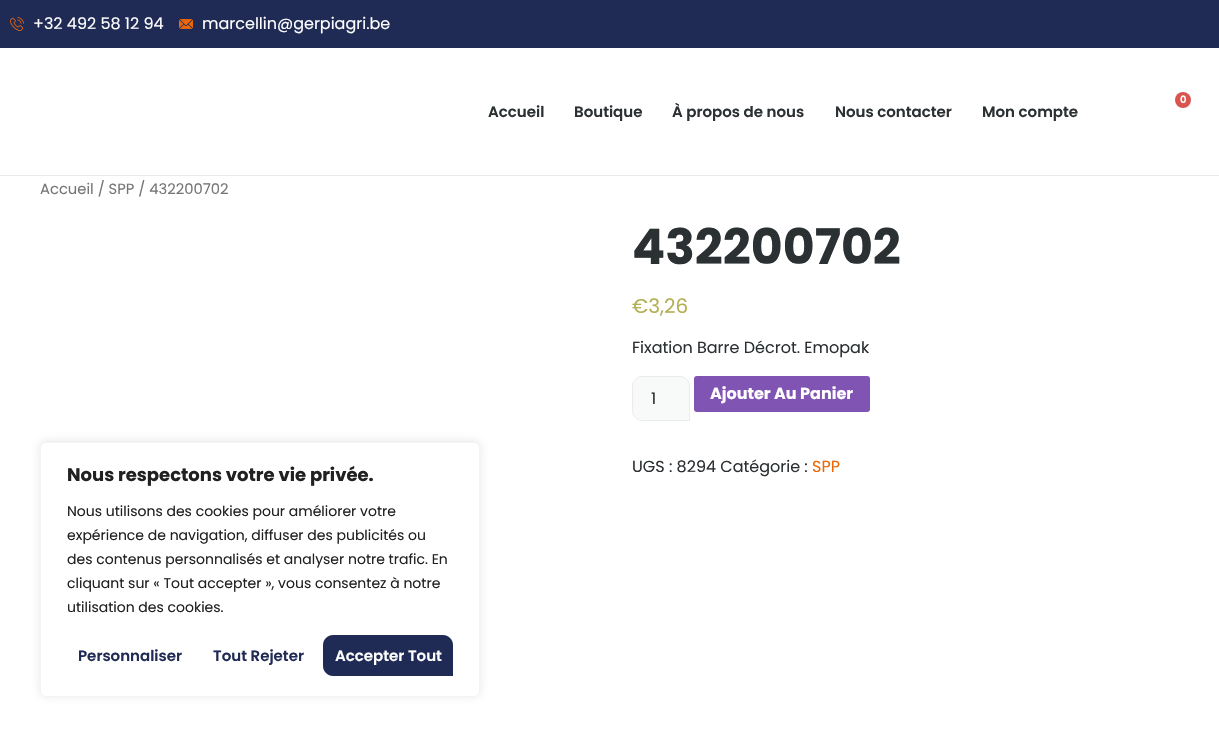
void draw(SkCanvas* c) {
SkPaint p;
p.setAntiAlias(true);
auto F=[&](const char* family, int weight, float size, bool italic = false){SkFontStyle style(weight, SkFontStyle::kNormal_Width,italic ? SkFontStyle::kItalic_Slant : SkFontStyle::kUpright_Slant);SkFont result(fontMgr->matchFamilyStyle(family, style), size);result.setSubpixel(true);return result;};
auto T=[&](const char* s, float x, float y, const SkFont& font){c->drawString(s, x, y, font, p);};
auto R=[&](float x, float y, float w, float h){c->drawRect(SkRect::MakeXYWH(x, y, w, h), p);};
auto Q=[&](float x, float y, float w, float h, float radius){c->drawRoundRect(SkRect::MakeXYWH(x, y, w, h), radius, radius, p);};
auto I=[&](const char* path, float x, float y, float w, float h){auto image = SkImages::DeferredFromEncodedData(SkData::MakeFromFileName(path));c->drawImageRect(image, SkRect::MakeXYWH(x, y, w, h), SkSamplingOptions());};
auto P=[&](const char* data, bool evenOdd = false){SkPath result = *SkParsePath::FromSVGString(data);if (evenOdd) result.setFillType(SkPathFillType::kEvenOdd);return result;};
c->clear(0xffffffff);
p.setColor(0xff202b55);
R(0,0,1219,48);
I("1.png",10,17,14,14);
auto f1 = F("Poppins",400,16);
p.setColor(0xffffffff);
T("+32 492 58 12 94",33,29,f1);
I("2.png",179,19,14,10);
T("marcellin@gerpiagri.be",202,29,f1);
p.setColor(0xffebebeb);
R(0,175,1219,1);
p.setColor(0xffd9534f);
c->drawCircle(1183,100,8,p);
auto f2 = F("Poppins",600,10);
p.setColor(0xffffffff);
T("0",1180,103,f2);
auto f3 = F("Poppins",600,15);
p.setColor(0xff2b3033);
T("Accueil",488,117,f3);
T("Boutique",574,117,f3);
T("À propos de nous",672,117,f3);
T("Nous contacter",835,117,f3);
T("Mon compte",982,117,f3);
auto f4 = F("Poppins",400,14.75);
p.setColor(0xff767676);
T("Accueil / SPP / 432200702",40,194,f4);
auto f5 = F("Poppins",700,49);
p.setColor(0xff2b3033);
T("432200702",632,264,f5);
auto f6 = F("Poppins",400,20);
p.setColor(0xffb3af54);
T("€3,26",632,313,f6);
p.setColor(0xff2b3033);
T("Fixation Barre Décrot. Emopak",632,353,f1);
p.setColor(0xfff8f9f9);
c->drawPath(P("M642 376.5h38c5 0 9.5 4.5 9.5 9.5v34.5h-47.5c-5 0-9.5-4.5-9.5-9.5v-25c0-5 4.5-9.5 9.5-9.5z"),p);
p.setStroke(true);
p.setStrokeWidth(1);
p.setColor(0xffebebeb);
c->drawPath(P("M642 376.5h38c5 0 9.5 4.5 9.5 9.5v34.5h-47.5c-5 0-9.5-4.5-9.5-9.5v-25c0-5 4.5-9.5 9.5-9.5z"),p);
p.setStroke(false);
p.setColor(0xff2b3033);
T("1",651,404,f1);
p.setColor(0xff7f54b3);
Q(694,376,176,36,3);
auto f7 = F("Poppins",700,16);
p.setColor(0xffffffff);
T("Ajouter Au Panier",710,399,f7);
p.setColor(0xff2b3033);
T("UGS : 8294 Catégorie :",632,472,f1);
p.setColor(0xffec6707);
T("SPP",812,472,f1);
p.setColor(0x4dacabab);
p.setMaskFilter(SkMaskFilter::MakeBlur(kNormal_SkBlurStyle, 5));
c->drawRoundRect(SkRect::MakeXYWH(40,441,440,255),6,6,p);
p.setMaskFilter(nullptr);
p.setColor(0xffffffff);
c->drawRoundRect(SkRect::MakeXYWH(40.5,442.5,439,254),5.5,5.5,p);
p.setStroke(true);
p.setColor(0xfff4f4f4);
c->drawRoundRect(SkRect::MakeXYWH(40.5,442.5,439,254),5.5,5.5,p);
auto f8 = F("Poppins",700,18);
p.setStroke(false);
p.setColor(0xff212121);
T("Nous respectons votre vie privée.",67,481,f8);
auto f9 = F("Poppins",400,14);
T("Nous utilisons des cookies pour améliorer votre",67,516,f9);
T("expérience de navigation, diffuser des publicités ou",67,540,f9);
T("des contenus personnalisés et analyser notre trafic. En",67,564,f9);
T("cliquant sur « Tout accepter », vous consentez à notre",67,588,f9);
T("utilisation des cookies.",67,612,f9);
p.setColor(0xff202b55);
T("Personnaliser",78,661,f3);
T("Tout Rejeter",213,661,f3);
c->drawPath(P("M333 635h110c5.5 0 10 4.5 10 10v31h-120c-5.5 0-10-4.5-10-10v-21c0-5.5 4.5-10 10-10z"),p);
p.setColor(0xffffffff);
T("Accepter Tout",335,661,f3);
}
